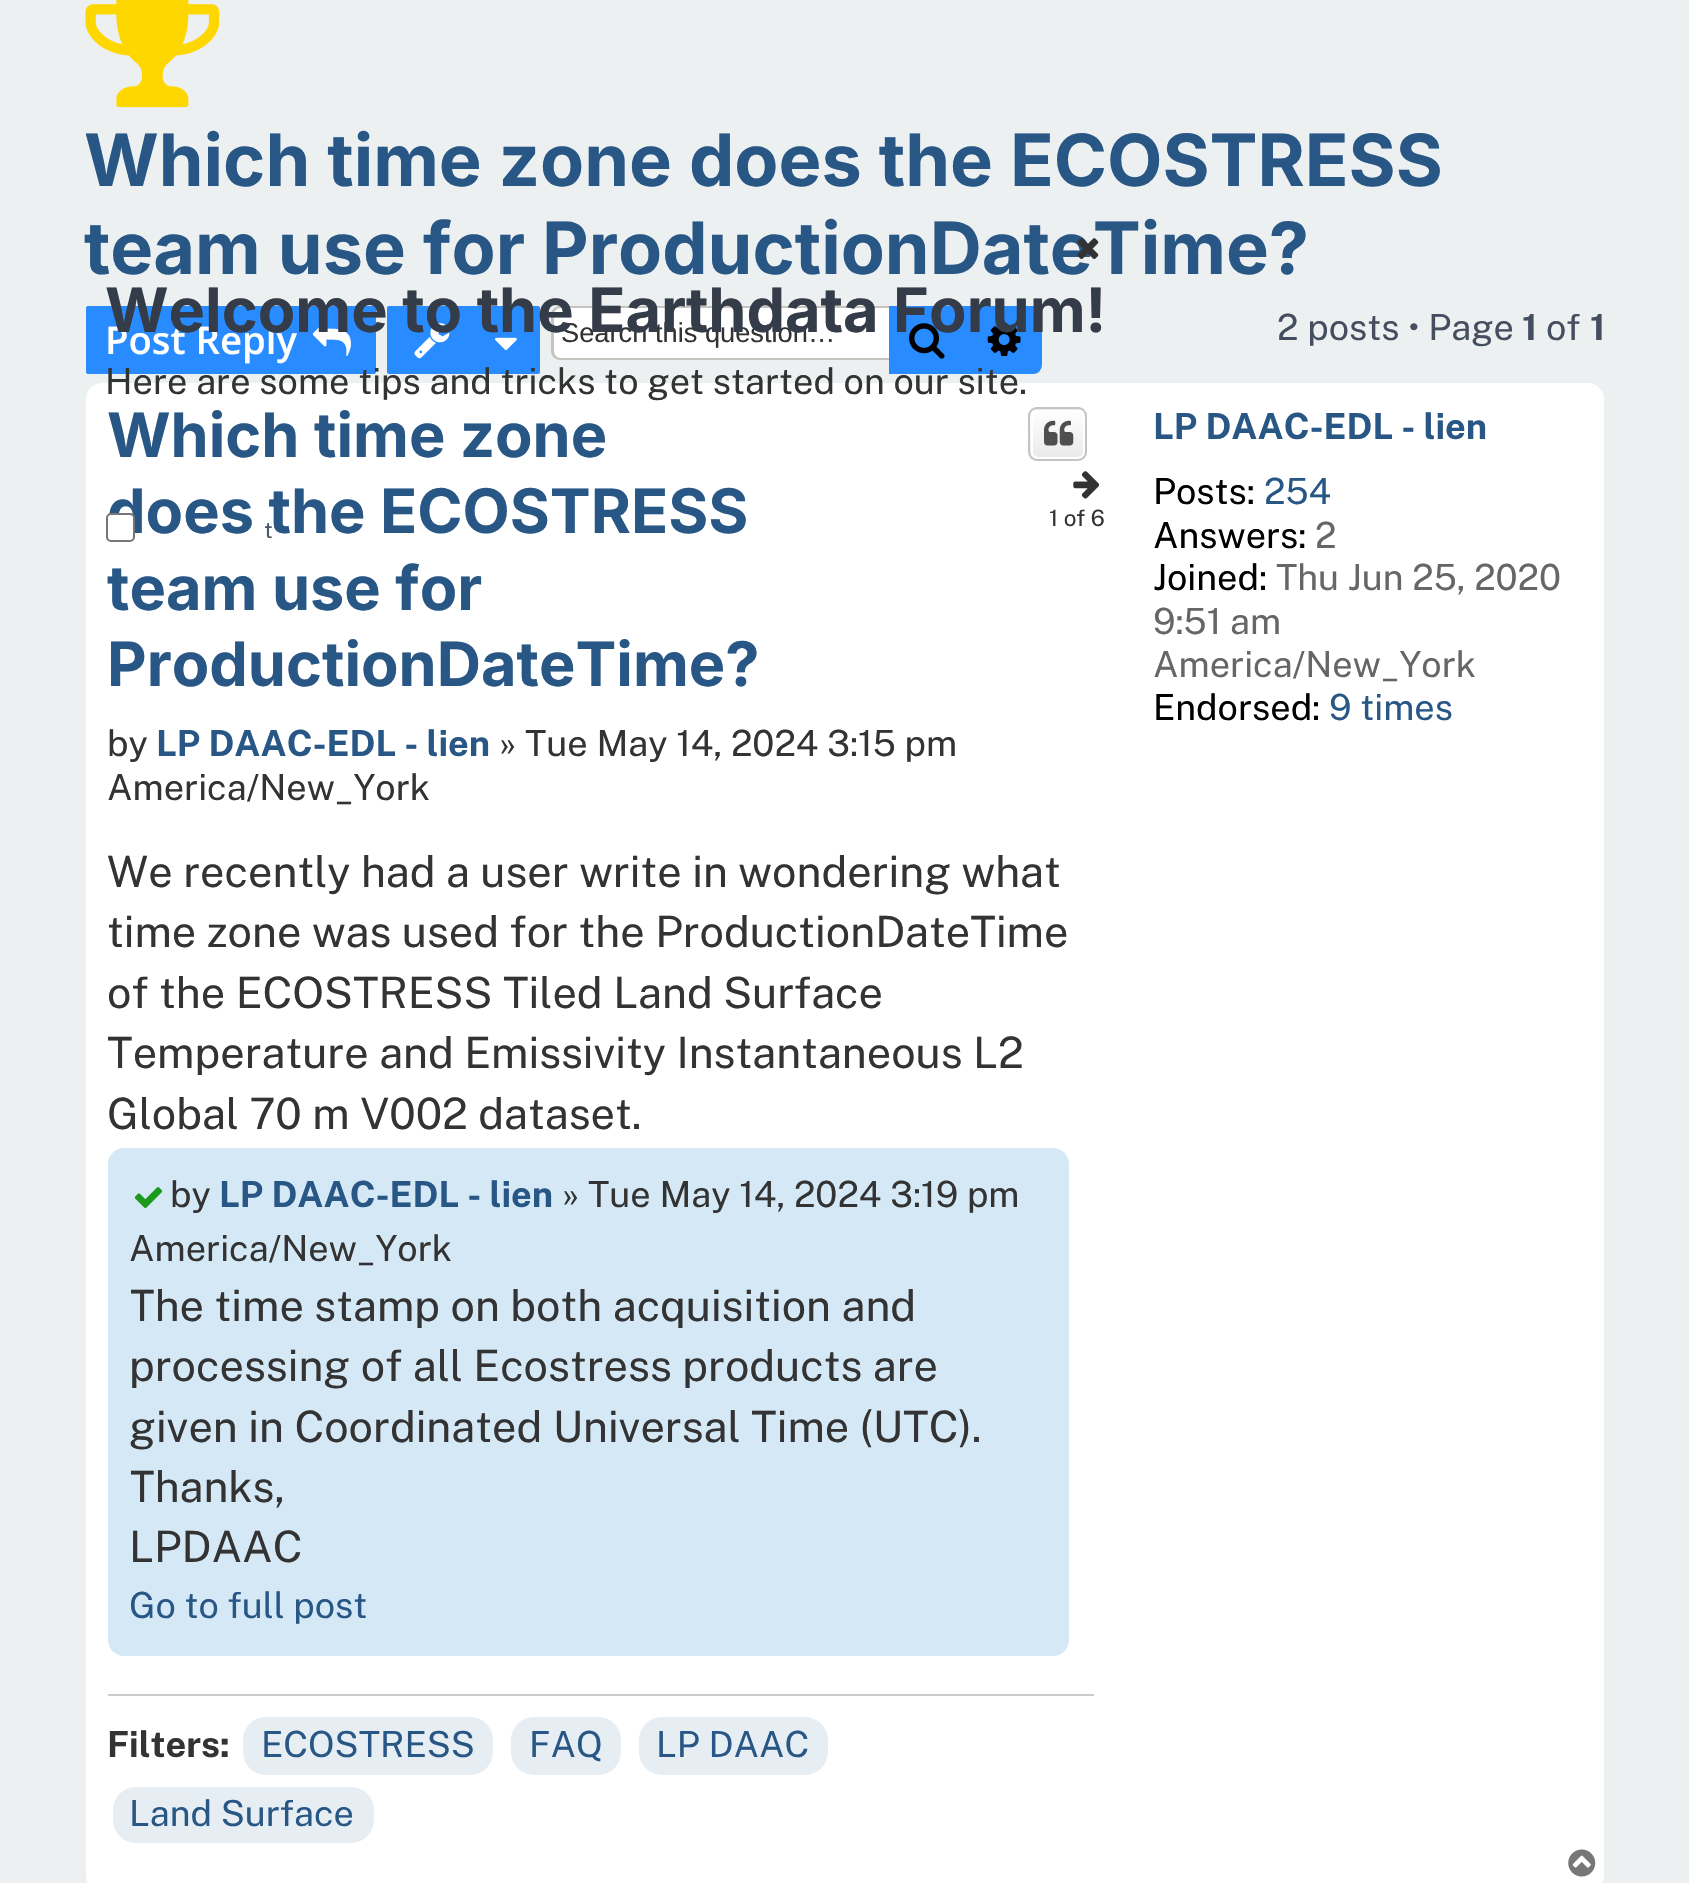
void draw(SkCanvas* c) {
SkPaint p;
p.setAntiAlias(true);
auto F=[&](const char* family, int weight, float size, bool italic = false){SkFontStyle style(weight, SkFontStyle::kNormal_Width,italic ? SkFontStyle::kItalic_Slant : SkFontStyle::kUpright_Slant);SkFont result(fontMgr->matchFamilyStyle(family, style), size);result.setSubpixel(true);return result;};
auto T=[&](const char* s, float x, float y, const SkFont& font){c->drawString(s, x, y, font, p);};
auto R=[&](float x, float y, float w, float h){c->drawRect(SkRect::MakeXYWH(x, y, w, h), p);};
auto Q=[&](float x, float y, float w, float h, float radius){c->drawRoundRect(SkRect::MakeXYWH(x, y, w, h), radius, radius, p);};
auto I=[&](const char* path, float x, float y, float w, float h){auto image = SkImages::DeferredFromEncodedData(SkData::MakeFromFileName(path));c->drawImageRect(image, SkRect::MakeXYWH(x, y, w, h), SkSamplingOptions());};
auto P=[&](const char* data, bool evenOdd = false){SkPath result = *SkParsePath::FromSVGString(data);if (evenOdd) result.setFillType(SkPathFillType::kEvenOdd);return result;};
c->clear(0xffecf0f1);
I("1.png",85,0,135,108);
auto f1 = F("Inter",700,72);
p.setColor(0xff285786);
T("Which time zone does the ECOSTRESS",84,186,f1);
T("team use for ProductionDateTime?",84,274,f1);
p.setColor(0xff288bff);
c->drawRoundRect(SkRect::MakeXYWH(87,307,288,66),1,1,p);
p.setStroke(true);
p.setStrokeWidth(2);
c->drawRoundRect(SkRect::MakeXYWH(87,307,288,66),1,1,p);
auto f2 = F("Open Sans",600,38.25);
p.setStroke(false);
p.setColor(0xffffffff);
T("Post Reply",105,354,f2);
I("2.png",312,321,39,35);
p.setColor(0xff288bff);
c->drawRoundRect(SkRect::MakeXYWH(388,307,151,66),1,1,p);
p.setStroke(true);
c->drawRoundRect(SkRect::MakeXYWH(388,307,151,66),1,1,p);
I("3.png",414,323,36,36);
I("4.png",495,337,22,14);
p.setStroke(false);
p.setColor(0xffffffff);
c->drawPath(P("M561 308h328v50h-328c-4 0-7-3-7-7v-36c0-4 3-7 7-7z"),p);
p.setColor(0xffc7c3bf);
c->drawPath(P("M560 306h329v54h-329c-5 0-9-4-9-9v-36c0-5 4-9 9-9zm0 2h329v50h-329c-3 0-6-3-6-7v-36c0-4 3-7 6-7z",true),p);
auto f3 = F("Liberation Sans",400,27.25);
p.setColor(0xff333333);
T("Search this question…",561,342,f3);
p.setColor(0xff288bff);
R(889,306,76,68);
I("5.png",909,323,36,36);
c->drawPath(P("M966 307h67c4.5 0 8 3.5 8 8v50c0 4.5-3.5 8-8 8h-67z"),p);
p.setStroke(true);
c->drawPath(P("M966 307h67c4.5 0 8 3.5 8 8v50c0 4.5-3.5 8-8 8h-67z"),p);
I("6.png",987,323,34,33);
auto f4 = F("Public Sans",400,36);
p.setStroke(false);
p.setColor(0xff454e5f);
T("2 posts • Page",1277,340,f4);
auto f5 = F("Public Sans",700,36);
T("1",1522,340,f5);
T("of",1546,340,f4);
T("1",1590,340,f5);
p.setColor(0xffffffff);
Q(86,383,1518,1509,16);
auto f6 = F("Inter",700,61.25);
p.setColor(0xff285786);
T("Which time zone",107,457,f6);
T("does the ECOSTRESS",107,533,f6);
T("team use for",107,610,f6);
T("ProductionDateTime?",107,686,f6);
c->save();
c->clipPath(P("M1037 407h41c5 0 9 4 9 9v36c0 5-4 9-9 9h-41c-5 0-9-4-9-9v-36c0-5 4-9 9-9z"),true);
{
const SkColor colors[] = {0xffffffff,0xffe9e9e9};
const float stops[] = {0,1};
const SkPoint ends[] = {{1058,360}, {1058,410}};
p.setShader(SkGradientShader::MakeLinear(ends, colors, stops, 2, SkTileMode::kClamp));
p.setAlpha(255);
}
R(1028,407,59,3);
{
const SkColor colors[] = {0xffffffff,0xffe9e9e9};
const float stops[] = {0,1};
const SkPoint ends[] = {{1058,410}, {1058,459}};
p.setShader(SkGradientShader::MakeLinear(ends, colors, stops, 2, SkTileMode::kClamp));
p.setAlpha(255);
}
R(1028,410,59,49);
c->restore();
p.setStroke(true);
p.setShader(nullptr);
p.setColor(0xffffffff);
c->drawRoundRect(SkRect::MakeXYWH(1032,411,52,47),6,6,p);
p.setColor(0xffc7c3bf);
c->drawRoundRect(SkRect::MakeXYWH(1029,408,57,52),8,8,p);
I("7.png",1044,420,30,26);
p.setStroke(false);
p.setColor(0xff333333);
T("by",107,756,f4);
p.setColor(0xff285786);
T("LP DAAC-EDL - lien",156,756,f5);
p.setColor(0xff333333);
T("» Tue May 14, 2024 3:15 pm",499,756,f4);
T("America/New_York",107,800,f4);
auto f7 = F("Public Sans",400,43.2);
T("We recently had a user write in wondering what",107,887,f7);
T("time zone was used for the ProductionDateTime",107,947,f7);
T("of the ECOSTRESS Tiled Land Surface",107,1008,f7);
T("Temperature and Emissivity Instantaneous L2",107,1068,f7);
T("Global 70 m V002 dataset.",107,1129,f7);
p.setColor(0xffd5e8f6);
Q(108,1148,961,508,16);
p.setColor(0xff333333);
T("by",170,1207,f4);
p.setColor(0xff285786);
T("LP DAAC-EDL - lien",219,1207,f5);
p.setColor(0xff333333);
T("» Tue May 14, 2024 3:19 pm",562,1207,f4);
T("America/New_York",129,1261,f4);
I("8.png",134,1187,29,21);
c->save();
c->clipRect(SkRect::MakeXYWH(131,1276,915,304));
T("The time stamp on both acquisition and",129,1321,f7);
c->restore();
T("processing of all Ecostress products are",129,1381,f7);
T("given in Coordinated Universal Time (UTC).",129,1442,f7);
c->save();
c->clipRect(SkRect::MakeXYWH(131,1276,915,304));
T("Thanks,",129,1502,f7);
c->restore();
T("LPDAAC",129,1562,f7);
p.setColor(0xff285786);
T("Go to full post",129,1618,f4);
p.setColor(0xffcccccc);
R(108,1694,986,2);
p.setColor(0xff333333);
T("Filters:",107,1757,f5);
p.setColor(0xffe6eef4);
Q(243,1717,250,58,23);
p.setColor(0xff285786);
T("ECOSTRESS",261,1757,f4);
p.setColor(0xffe6eef4);
Q(511,1717,110,58,23);
p.setColor(0xff285786);
T("FAQ",529,1757,f4);
p.setColor(0xffe6eef4);
Q(639,1717,189,58,23);
p.setColor(0xff285786);
T("LP DAAC",656,1757,f4);
p.setColor(0xffe6eef4);
Q(113,1787,261,56,23);
p.setColor(0xff285786);
T("Land Surface",129,1826,f4);
T("LP DAAC-EDL - lien",1153,439,f5);
p.setColor(0xff000000);
T("Posts:",1153,504,f4);
p.setColor(0xff285786);
T("254",1264,504,f4);
p.setColor(0xff000000);
T("Answers:",1153,548,f4);
p.setColor(0xff666666);
T("2",1315,548,f4);
p.setColor(0xff000000);
T("Joined:",1153,590,f4);
p.setColor(0xff666666);
T("Thu Jun 25, 2020",1276,590,f4);
T("9:51 am",1153,634,f4);
T("America/New_York",1153,677,f4);
p.setColor(0xff000000);
T("Endorsed:",1153,720,f4);
p.setColor(0xff285786);
T("9 times",1329,720,f4);
I("9.png",1568,1849,28,28);
I("10.png",1077,238,22,22);
p.setColor(0xff353c49);
T("Welcome to the Earthdata Forum!",105,332,f6);
p.setColor(0xff333333);
T("Here are some tips and tricks to get started on our site.",105,394,f4);
I("11.png",1073,471,27,28);
auto f8 = F("Public Sans",400,22.5);
T("1 of 6",1049,526,f8);
p.setColor(0xffffffff);
c->drawRoundRect(SkRect::MakeXYWH(107,514,27,27),4,4,p);
p.setStroke(true);
p.setColor(0xff767676);
c->drawRoundRect(SkRect::MakeXYWH(107,514,27,27),4,4,p);
p.setStroke(false);
p.setColor(0xff50596c);
T("t",264,538,f8);
}
